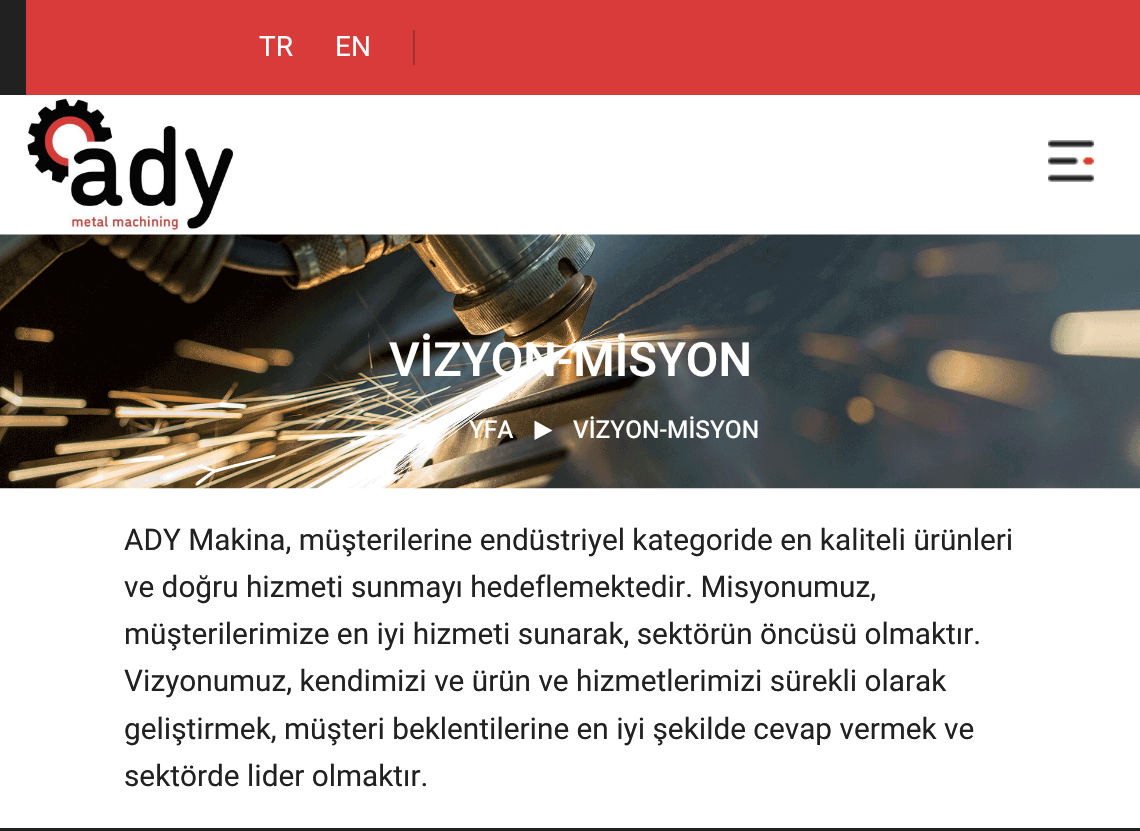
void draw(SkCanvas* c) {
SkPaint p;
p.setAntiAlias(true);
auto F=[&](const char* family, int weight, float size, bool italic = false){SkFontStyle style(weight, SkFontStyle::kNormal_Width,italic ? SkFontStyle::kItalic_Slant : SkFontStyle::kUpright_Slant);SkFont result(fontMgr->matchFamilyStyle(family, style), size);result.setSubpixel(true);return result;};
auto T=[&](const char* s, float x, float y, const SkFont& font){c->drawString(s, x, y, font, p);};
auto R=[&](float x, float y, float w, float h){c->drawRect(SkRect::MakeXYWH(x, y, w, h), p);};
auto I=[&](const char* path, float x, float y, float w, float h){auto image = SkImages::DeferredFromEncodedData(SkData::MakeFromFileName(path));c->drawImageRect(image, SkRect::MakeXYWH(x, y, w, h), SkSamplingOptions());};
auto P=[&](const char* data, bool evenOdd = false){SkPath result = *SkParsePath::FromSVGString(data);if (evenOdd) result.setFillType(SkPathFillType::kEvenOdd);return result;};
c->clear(0xffffffff);
p.setColor(0xff212121);
R(0,0,26,95);
p.setColor(0xffd93a3a);
R(26,0,1114,95);
auto f1 = F("Heebo",400,28);
p.setColor(0xffffffff);
T("TR",259,56,f1);
T("EN",335,56,f1);
p.setColor(0xff9e3232);
R(413,30,2,35);
I("1.png",27,98,207,133);
I("2.png",1048,140,46,42);
I("3.png",0,234,1140,255);
auto f2 = F("Heebo",600,47.25);
p.setColor(0xffffffff);
T("VİZYON-MİSYON",389,376,f2);
auto f3 = F("Heebo",500,24.5);
T("YFA",469,438,f3);
c->drawPath(P("M534.5 440v-19.5l18 10z"),p);
T("VİZYON-MİSYON",573,438,f3);
auto f4 = F("Heebo",400,29.75);
p.setColor(0xff212121);
T("ADY Makina, müşterilerine endüstriyel kategoride en kaliteli ürünleri",124,550,f4);
T("ve doğru hizmeti sunmayı hedeflemektedir. Misyonumuz,",124,597,f4);
T("müşterilerimize en iyi hizmeti sunarak, sektörün öncüsü olmaktır.",124,644,f4);
T("Vizyonumuz, kendimizi ve ürün ve hizmetlerimizi sürekli olarak",124,691,f4);
T("geliştirmek, müşteri beklentilerine en iyi şekilde cevap vermek ve",124,739,f4);
T("sektörde lider olmaktır.",124,786,f4);
R(0,828,1140,3);
}
